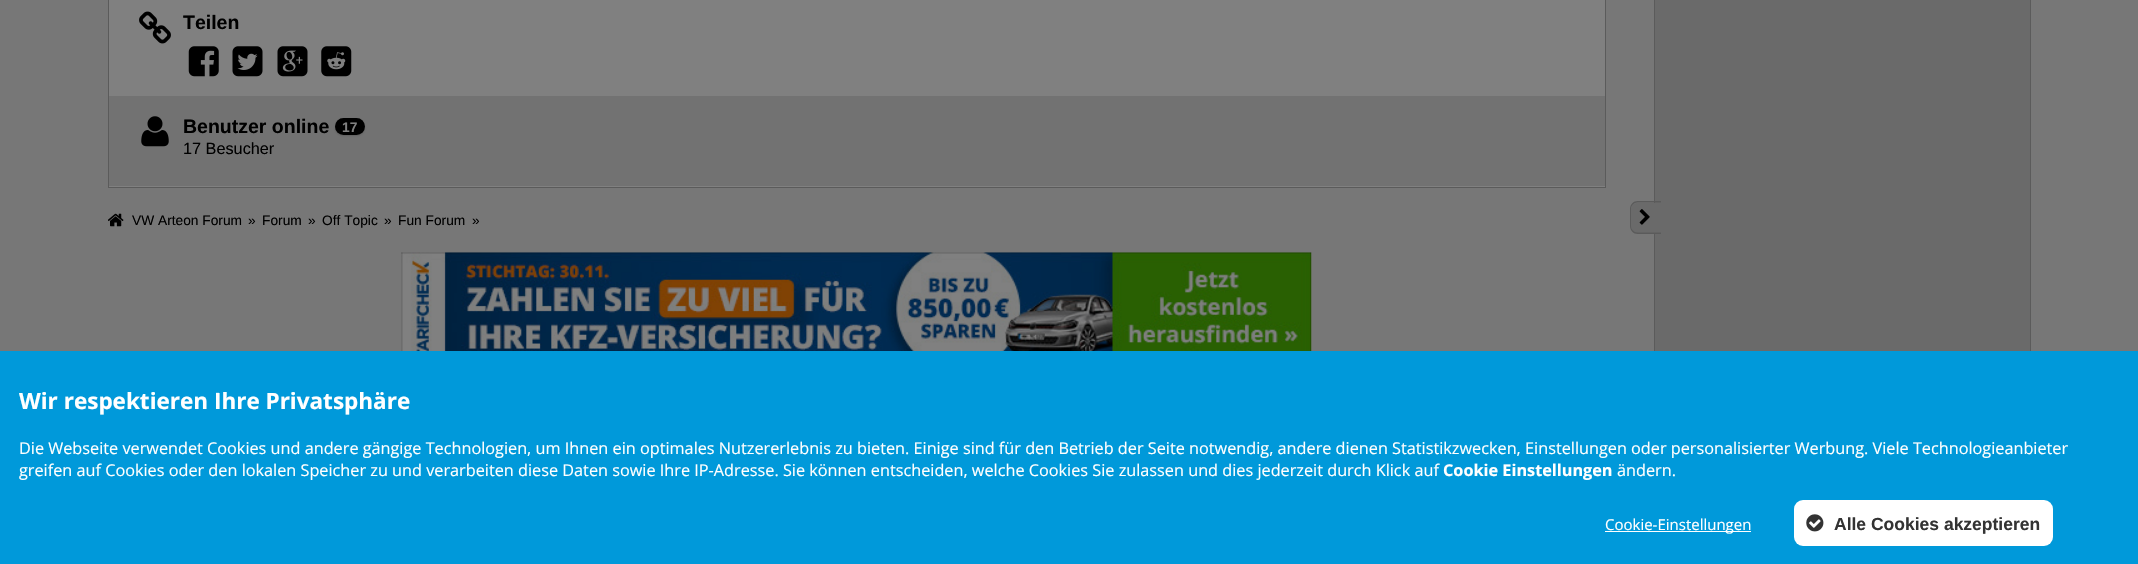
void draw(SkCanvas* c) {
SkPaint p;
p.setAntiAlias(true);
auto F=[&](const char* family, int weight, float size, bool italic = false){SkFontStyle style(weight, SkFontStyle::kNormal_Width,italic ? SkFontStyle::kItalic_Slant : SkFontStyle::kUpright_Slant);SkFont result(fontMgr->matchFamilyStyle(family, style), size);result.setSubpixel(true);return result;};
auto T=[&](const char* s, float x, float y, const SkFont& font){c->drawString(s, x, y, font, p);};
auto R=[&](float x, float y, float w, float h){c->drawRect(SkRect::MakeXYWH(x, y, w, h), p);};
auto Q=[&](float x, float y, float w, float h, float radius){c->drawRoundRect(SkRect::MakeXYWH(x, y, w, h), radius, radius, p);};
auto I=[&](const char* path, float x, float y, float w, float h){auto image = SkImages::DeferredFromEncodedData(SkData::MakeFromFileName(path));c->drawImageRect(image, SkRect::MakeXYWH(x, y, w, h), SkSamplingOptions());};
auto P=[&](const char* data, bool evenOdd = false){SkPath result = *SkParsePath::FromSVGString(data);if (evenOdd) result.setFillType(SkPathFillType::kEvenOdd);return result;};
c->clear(0xff777777);
p.setColor(0xff808080);
c->drawRect(SkRect::MakeXYWH(108.5,-.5,1497,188),p);
p.setStroke(true);
p.setStrokeWidth(1);
p.setColor(0xff5b5b5b);
c->drawRect(SkRect::MakeXYWH(108.5,-.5,1497,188),p);
I("1.png",139,11,32,33);
auto f1 = F("Liberation Sans",700,19.5);
p.setStroke(false);
p.setColor(0xff000000);
T("Teilen",183,29,f1);
I("2.png",188,46,31,31);
I("3.png",232,46,31,31);
I("4.png",277,46,31,31);
I("5.png",321,46,31,31);
p.setColor(0xff727272);
R(109,96,1496,90);
I("6.png",141,116,28,31);
p.setColor(0xff000000);
T("Benutzer online",183,133,f1);
p.setColor(0x26000000);
p.setMaskFilter(SkMaskFilter::MakeBlur(kNormal_SkBlurStyle, 1));
c->drawRoundRect(SkRect::MakeXYWH(335,119,30,17),8.5,8.5,p);
p.setMaskFilter(nullptr);
p.setColor(0xff000000);
Q(335,118,30,17,8.5);
auto f2 = F("Liberation Sans",700,13.75);
p.setColor(0xff808080);
T("17",342,132,f2);
auto f3 = F("Liberation Sans",400,16.25);
p.setColor(0xff000000);
T("17 Besucher",183,154,f3);
I("7.png",108,213,16,14);
auto f4 = F("Liberation Sans",400,13.75);
T("VW Arteon Forum",132,225,f4);
T("»",248,225,f4);
T("Forum",262,225,f4);
T("»",308,225,f4);
T("Off Topic",322,225,f4);
T("»",384,225,f4);
T("Fun Forum",398,225,f4);
T("»",472,225,f4);
I("8.png",401,252,911,99);
p.setColor(0xff6a6a6a);
R(1655,0,375,351);
p.setStroke(true);
p.setColor(0xff5b5b5b);
c->drawRect(SkRect::MakeXYWH(1654.5,-.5,376,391),p);
p.setStroke(false);
p.setColor(0xff6a6a6a);
c->drawPath(P("M1637 203h24v30h-24c-3.5 0-6-2.5-6-6v-18c0-3.5 2.5-6 6-6z"),p);
p.setColor(0xff5b5b5b);
c->drawPath(P("M1637.5 201h23.5v33h-23.5c-4 0-7.5-3.5-7.5-8v-17c0-4.5 3.5-8 7.5-8zm0 1.5h23.5v30h-23.5c-3.5 0-6.5-3-6.5-6.5v-17c0-3.5 3-6.5 6.5-6.5z",true),p);
I("9.png",1639,209,11,16);
p.setColor(0xff0099da);
R(0,351,2138,213);
auto f5 = F("Open Sans",700,22.5);
p.setColor(0xffffffff);
T("Wir respektieren Ihre Privatsphäre",19,409,f5);
auto f6 = F("Open Sans",400,16.25);
T("Die Webseite verwendet Cookies und andere gängige Technologien, um Ihnen ein optimales Nutzererlebnis zu bieten. Einige sind für den Betrieb der Seite notwendig, andere dienen Statistikzwecken, Einstellungen oder personalisierter Werbung. Viele Technologieanbieter",19,454,f6);
T("greifen auf Cookies oder den lokalen Speicher zu und verarbeiten diese Daten sowie Ihre IP-Adresse. Sie können entscheiden, welche Cookies Sie zulassen und dies jederzeit durch Klick auf",19,476,f6);
auto f7 = F("Open Sans",700,16.25);
T("Cookie Einstellungen",1443,476,f7);
T("ändern.",1617,476,f6);
R(1605,531,146,1);
auto f8 = F("Open Sans",400,15);
T("Cookie-Einstellungen",1605,530,f8);
Q(1794,500,259,46,9);
I("10.png",1806,514,18,18);
auto f9 = F("Liberation Sans",700,17.5);
p.setColor(0xff333333);
T("Alle Cookies akzeptieren",1834,530,f9);
}
